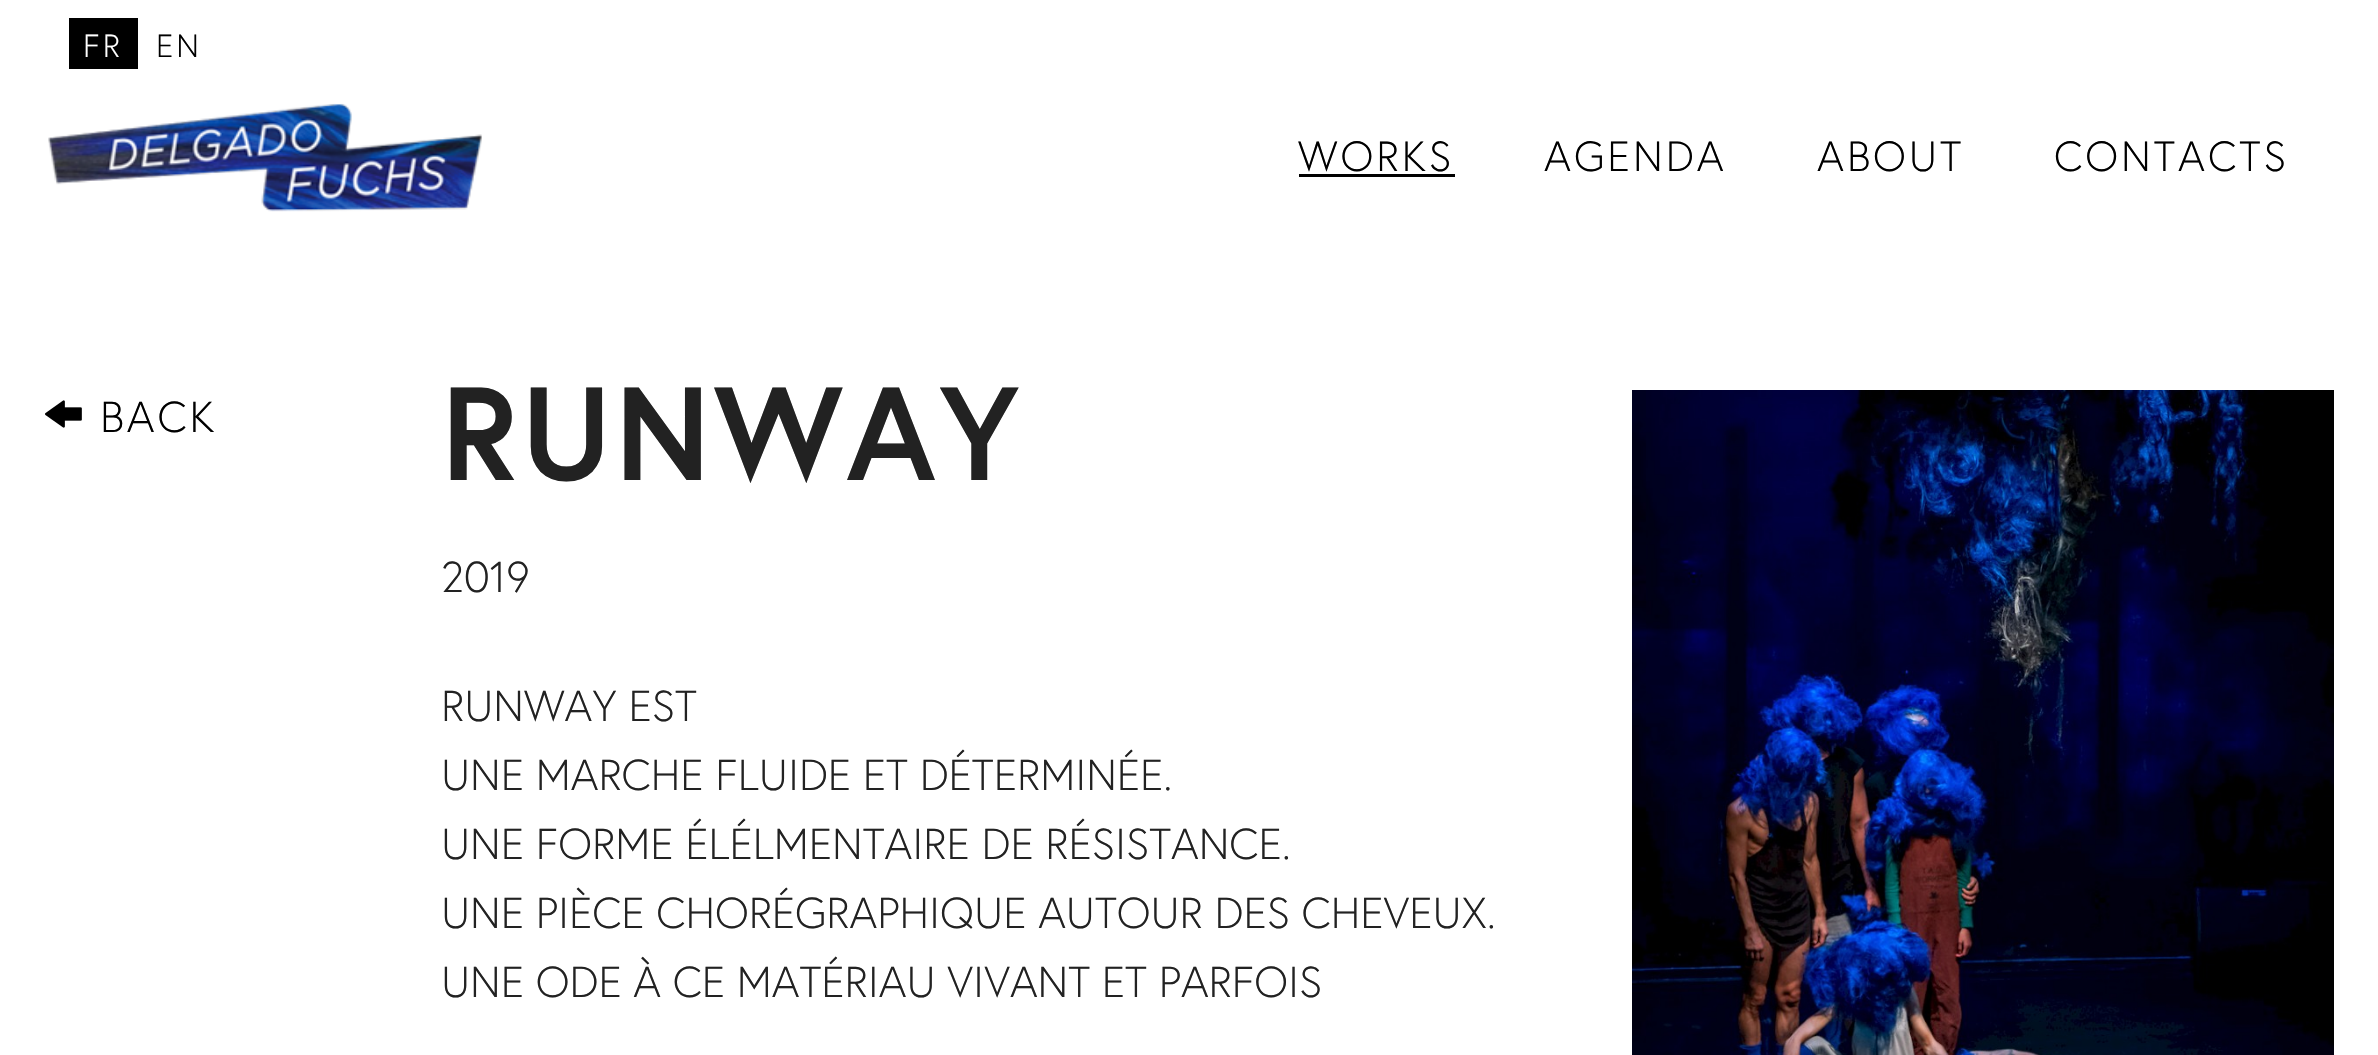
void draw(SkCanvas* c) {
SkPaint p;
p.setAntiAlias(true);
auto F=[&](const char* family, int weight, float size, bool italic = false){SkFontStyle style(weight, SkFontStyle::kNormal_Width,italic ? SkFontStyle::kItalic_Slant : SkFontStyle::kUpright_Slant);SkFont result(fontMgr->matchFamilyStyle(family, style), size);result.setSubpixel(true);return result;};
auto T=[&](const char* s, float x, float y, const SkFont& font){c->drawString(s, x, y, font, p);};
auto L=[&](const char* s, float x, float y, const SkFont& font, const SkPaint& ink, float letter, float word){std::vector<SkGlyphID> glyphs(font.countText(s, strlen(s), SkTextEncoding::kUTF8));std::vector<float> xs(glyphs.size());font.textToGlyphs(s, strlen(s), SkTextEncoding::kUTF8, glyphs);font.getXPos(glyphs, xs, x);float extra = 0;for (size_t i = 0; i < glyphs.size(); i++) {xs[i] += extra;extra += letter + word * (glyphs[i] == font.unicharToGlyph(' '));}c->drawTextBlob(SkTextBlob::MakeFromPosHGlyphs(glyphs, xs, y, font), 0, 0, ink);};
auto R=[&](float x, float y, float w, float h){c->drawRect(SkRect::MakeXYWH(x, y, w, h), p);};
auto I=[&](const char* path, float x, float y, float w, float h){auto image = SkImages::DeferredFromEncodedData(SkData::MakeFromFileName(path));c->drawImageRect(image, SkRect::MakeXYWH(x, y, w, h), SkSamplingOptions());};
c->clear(0xffffffff);
p.setColor(0xff000000);
R(69,18,69,51);
auto f1 = F("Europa",300,32);
p.setColor(0xffffffff);
L("FR",83,57,f1,p,3,0);
p.setColor(0xff000000);
L("EN",156,57,f1,p,3,0);
I("1.png",48,103,434,109);
auto f2 = F("Europa",300,42);
L("WORKS",1298,171,f2,p,3,0);
R(1299,174,156,3);
L("AGENDA",1544,171,f2,p,3,0);
L("ABOUT",1817,171,f2,p,3,0);
L("CONTACTS",2054,171,f2,p,3,0);
I("2.png",45,400,37,28);
auto f3 = F("Europa",300,43.2);
L("BACK",100,432,f3,p,3,0);
auto f4 = F("Europa",700,132);
p.setColor(0xff222222);
L("RUNWAY",441,480,f4,p,3,0);
T("2019",441,592,f3);
T("RUNWAY EST",441,721,f3);
T("UNE MARCHE FLUIDE ET DÉTERMINÉE.",441,790,f3);
T("UNE FORME ÉLÉLMENTAIRE DE RÉSISTANCE.",441,859,f3);
T("UNE PIÈCE CHORÉGRAPHIQUE AUTOUR DES CHEVEUX.",441,928,f3);
T("UNE ODE À CE MATÉRIAU VIVANT ET PARFOIS",441,997,f3);
I("3.png",1632,390,702,665);
}
